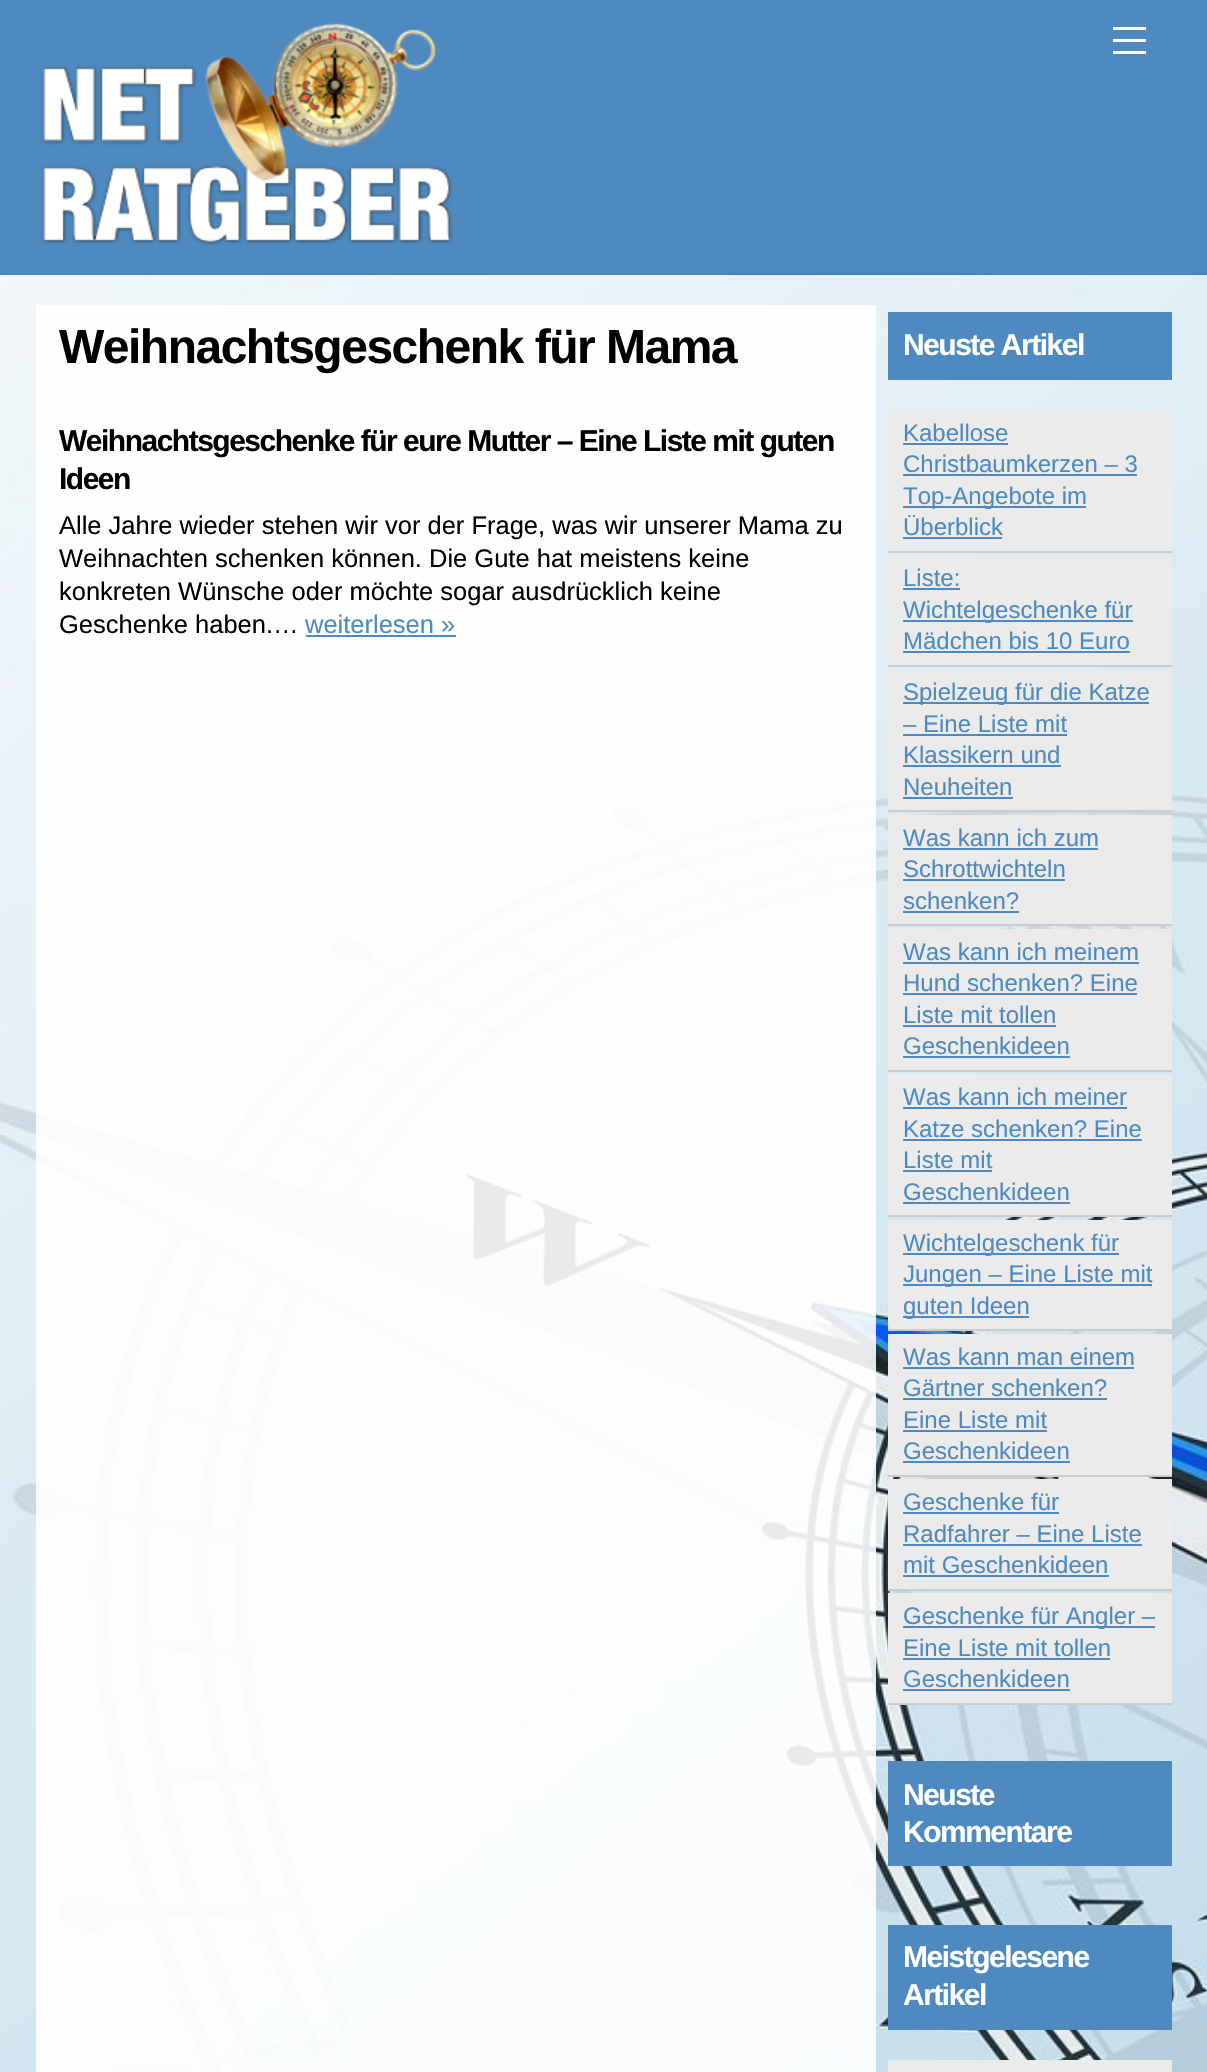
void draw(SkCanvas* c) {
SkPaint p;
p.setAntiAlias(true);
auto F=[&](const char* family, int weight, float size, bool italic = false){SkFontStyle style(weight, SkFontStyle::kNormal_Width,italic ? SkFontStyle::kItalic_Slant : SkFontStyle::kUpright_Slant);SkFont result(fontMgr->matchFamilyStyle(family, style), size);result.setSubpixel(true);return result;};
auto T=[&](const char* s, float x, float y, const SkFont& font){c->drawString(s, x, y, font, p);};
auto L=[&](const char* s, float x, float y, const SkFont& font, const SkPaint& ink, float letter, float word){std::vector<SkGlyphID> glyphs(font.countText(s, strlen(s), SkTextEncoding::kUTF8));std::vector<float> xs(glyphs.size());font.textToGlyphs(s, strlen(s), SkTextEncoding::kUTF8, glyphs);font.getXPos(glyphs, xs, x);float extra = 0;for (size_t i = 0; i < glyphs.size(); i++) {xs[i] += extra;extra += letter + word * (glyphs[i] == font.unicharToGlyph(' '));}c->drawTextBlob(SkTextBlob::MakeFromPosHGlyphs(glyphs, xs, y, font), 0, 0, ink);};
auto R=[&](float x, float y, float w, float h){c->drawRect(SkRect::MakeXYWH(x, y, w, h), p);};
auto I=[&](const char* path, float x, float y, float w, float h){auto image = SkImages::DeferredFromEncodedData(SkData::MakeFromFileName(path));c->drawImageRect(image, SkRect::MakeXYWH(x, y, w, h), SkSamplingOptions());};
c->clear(0xffffffff);
I("1.png",0,275,1207,1797);
p.setColor(0xff4e8abf);
R(0,0,1207,273);
p.setColor(0xff4a83b5);
R(0,273,1207,2);
I("2.png",41,23,412,223);
p.setColor(0xffffffff);
R(1113,51,33,3);
R(1113,27,33,3);
R(1113,39,33,3);
p.setColor(0xe3ffffff);
R(36,305,840,1767);
auto f1 = F("Liberation Sans",700,48);
p.setColor(0xff000000);
L("Weihnachtsgeschenk für Mama",59,363,f1,p,-1.5,0);
auto f2 = F("Liberation Sans",700,30);
L("Weihnachtsgeschenke für eure Mutter – Eine Liste mit guten",59,451,f2,p,-1.5,0);
L("Ideen",59,489,f2,p,-1.5,0);
auto f3 = F("Liberation Sans",400,25.5);
T("Alle Jahre wieder stehen wir vor der Frage, was wir unserer Mama zu",59,534,f3);
T("Weihnachten schenken können. Die Gute hat meistens keine",59,567,f3);
T("konkreten Wünsche oder möchte sogar ausdrücklich keine",59,600,f3);
T("Geschenke haben.…",59,633,f3);
p.setColor(0xff4e8abf);
T("weiterlesen »",305,633,f3);
R(306,635,150,2);
R(888,312,284,68);
p.setColor(0xffffffff);
L("Neuste Artikel",903,355,f2,p,-1.5,0);
p.setColor(0xffebebeb);
R(888,410,284,141);
p.setColor(0xffcccccc);
R(888,551,284,2);
auto f4 = F("Liberation Sans",400,24);
p.setColor(0xff4e8abf);
T("Kabellose",903,441,f4);
R(903,443,105,2);
T("Christbaumkerzen – 3",903,472,f4);
R(903,474,234,2);
R(903,506,183,2);
T("Top-Angebote im",903,504,f4);
T("Überblick",903,535,f4);
R(903,537,99,2);
p.setColor(0xffebebeb);
R(888,555,284,110);
p.setColor(0xffcccccc);
R(888,665,284,2);
p.setColor(0xff4e8abf);
T("Liste:",903,586,f4);
R(903,588,57,2);
R(903,620,230,2);
T("Wichtelgeschenke für",903,618,f4);
T("Mädchen bis 10 Euro",903,649,f4);
R(903,651,227,2);
p.setColor(0xffebebeb);
R(888,669,284,141);
p.setColor(0xffcccccc);
R(888,810,284,2);
p.setColor(0xff4e8abf);
R(903,702,246,2);
T("Spielzeug für die Katze",903,700,f4);
T("– Eine Liste mit",903,732,f4);
R(903,734,164,2);
T("Klassikern und",903,763,f4);
R(903,765,158,2);
T("Neuheiten",903,795,f4);
R(903,797,110,2);
p.setColor(0xffebebeb);
R(888,815,284,109);
p.setColor(0xffcccccc);
R(888,924,284,2);
p.setColor(0xff4e8abf);
T("Was kann ich zum",903,846,f4);
R(903,848,195,2);
T("Schrottwichteln",903,877,f4);
R(903,879,162,2);
T("schenken?",903,909,f4);
R(903,911,116,2);
p.setColor(0xffebebeb);
R(888,929,284,141);
p.setColor(0xffcccccc);
R(888,1070,284,2);
p.setColor(0xff4e8abf);
T("Was kann ich meinem",903,960,f4);
R(903,962,236,2);
T("Hund schenken? Eine",903,991,f4);
R(903,993,234,2);
T("Liste mit tollen",903,1023,f4);
R(903,1025,153,2);
T("Geschenkideen",903,1054,f4);
R(903,1056,167,2);
p.setColor(0xffebebeb);
R(888,1074,284,141);
p.setColor(0xffcccccc);
R(888,1215,284,2);
p.setColor(0xff4e8abf);
T("Was kann ich meiner",903,1105,f4);
R(903,1107,224,2);
T("Katze schenken? Eine",903,1137,f4);
R(903,1139,239,2);
T("Liste mit",903,1168,f4);
R(903,1170,89,2);
T("Geschenkideen",903,1200,f4);
R(903,1202,167,2);
p.setColor(0xffebebeb);
R(888,1220,284,109);
p.setColor(0xffcccccc);
R(888,1329,284,2);
p.setColor(0xff4e8abf);
R(903,1253,216,2);
T("Wichtelgeschenk für",903,1251,f4);
R(903,1284,249,2);
T("Jungen – Eine Liste mit",903,1282,f4);
R(903,1316,126,2);
T("guten Ideen",903,1314,f4);
p.setColor(0xffebebeb);
R(888,1334,284,141);
p.setColor(0xffcccccc);
R(888,1475,284,2);
p.setColor(0xff4e8abf);
T("Was kann man einem",903,1365,f4);
R(903,1367,231,2);
T("Gärtner schenken?",903,1396,f4);
R(903,1398,204,2);
T("Eine Liste mit",903,1428,f4);
R(903,1430,144,2);
T("Geschenkideen",903,1459,f4);
R(903,1461,167,2);
p.setColor(0xffebebeb);
R(888,1479,284,110);
p.setColor(0xffcccccc);
R(888,1589,284,2);
p.setColor(0xff4e8abf);
T("Geschenke für",903,1510,f4);
R(903,1512,156,2);
T("Radfahrer – Eine Liste",903,1542,f4);
R(903,1544,239,2);
T("mit Geschenkideen",903,1573,f4);
R(903,1575,206,2);
p.setColor(0xffebebeb);
R(888,1593,284,110);
p.setColor(0xffcccccc);
R(888,1703,284,2);
p.setColor(0xff4e8abf);
R(903,1626,252,2);
T("Geschenke für Angler –",903,1624,f4);
T("Eine Liste mit tollen",903,1656,f4);
R(903,1658,207,2);
T("Geschenkideen",903,1687,f4);
R(903,1689,167,2);
R(888,1761,284,105);
p.setColor(0xffffffff);
L("Neuste",903,1805,f2,p,-1.5,0);
L("Kommentare",903,1842,f2,p,-1.5,0);
p.setColor(0xff4e8abf);
R(888,1925,284,105);
p.setColor(0xffffffff);
L("Meistgelesene",903,1967,f2,p,-1.5,0);
L("Artikel",903,2005,f2,p,-1.5,0);
p.setColor(0xffebebeb);
R(888,2060,284,12);
}
